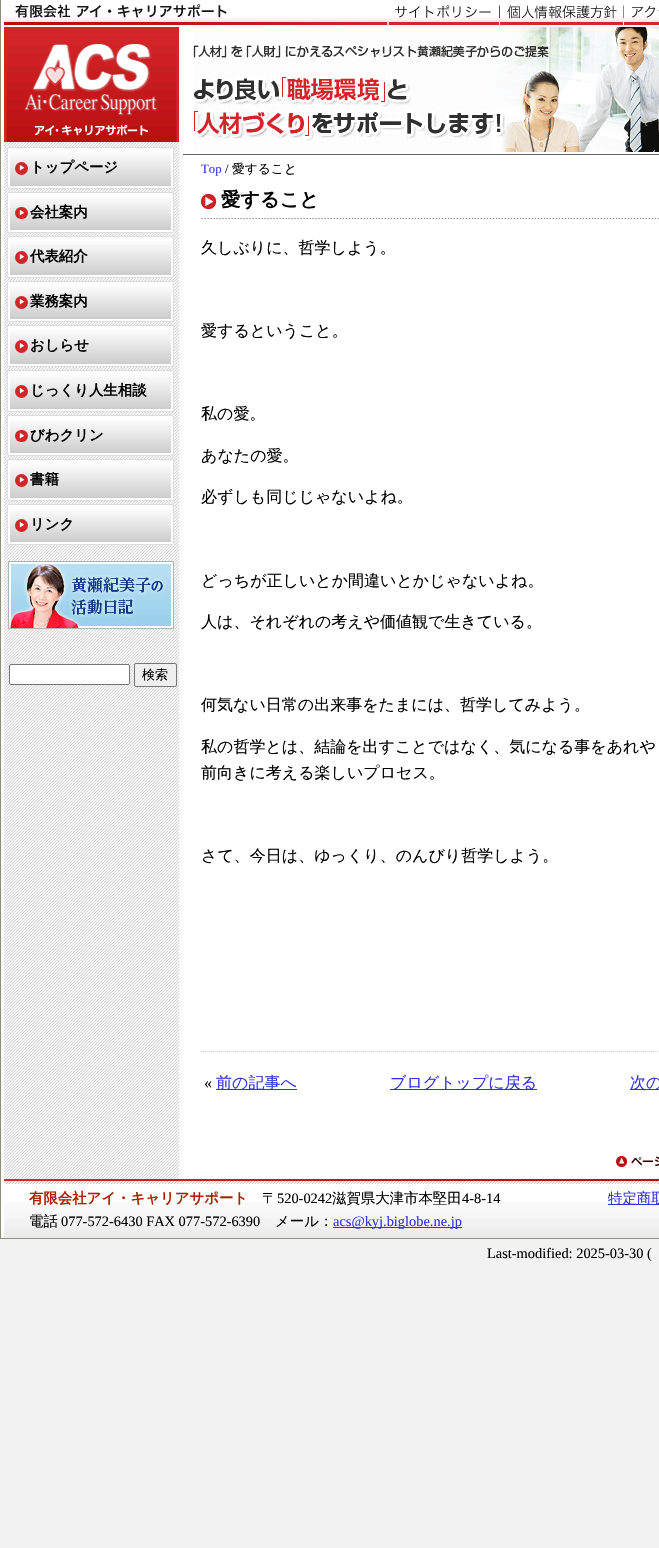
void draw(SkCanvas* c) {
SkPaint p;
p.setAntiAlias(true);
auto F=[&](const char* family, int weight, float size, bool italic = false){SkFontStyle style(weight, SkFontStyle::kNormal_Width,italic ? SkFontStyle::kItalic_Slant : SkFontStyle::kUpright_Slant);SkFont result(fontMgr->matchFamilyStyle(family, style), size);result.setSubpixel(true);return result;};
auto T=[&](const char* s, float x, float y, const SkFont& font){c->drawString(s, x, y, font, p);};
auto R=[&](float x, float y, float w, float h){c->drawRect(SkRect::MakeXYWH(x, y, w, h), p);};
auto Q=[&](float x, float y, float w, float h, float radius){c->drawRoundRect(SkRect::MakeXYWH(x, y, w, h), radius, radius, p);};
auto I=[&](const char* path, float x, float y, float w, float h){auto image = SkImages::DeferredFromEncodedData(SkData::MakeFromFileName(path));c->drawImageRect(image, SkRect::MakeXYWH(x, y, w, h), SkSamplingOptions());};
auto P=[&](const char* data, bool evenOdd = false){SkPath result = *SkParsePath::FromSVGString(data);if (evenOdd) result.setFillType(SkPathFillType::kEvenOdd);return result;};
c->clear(0xfff2f2f2);
p.setColor(0xffffffff);
R(1,0,658,1238);
I("1.png",4,27,176,1152);
p.setColor(0xff8e8f76);
R(0,1238,659,1);
R(0,0,1,1239);
I("2.png",4,4,655,21);
I("3.png",388,5,111,20);
I("4.png",499,5,118,20);
I("5.png",623,5,36,14);
I("6.png",4,27,175,115);
p.setColor(0xffffffff);
c->drawRoundRect(SkRect::MakeXYWH(7.5,147.5,166,41),1.5,1.5,p);
p.setStroke(true);
p.setStrokeWidth(1);
p.setColor(0xffdddddd);
c->drawRoundRect(SkRect::MakeXYWH(7.5,147.5,166,41),1.5,1.5,p);
p.setStroke(false);
{
const SkColor colors[] = {0xffffffff,0xffcccccc};
const float stops[] = {0,1};
const SkPoint ends[] = {{91,150}, {91,186}};
p.setShader(SkGradientShader::MakeLinear(ends, colors, stops, 2, SkTileMode::kClamp));
p.setAlpha(255);
}
R(10,152,161,34);
p.setShader(nullptr);
p.setColor(0xffd32428);
c->drawCircle(21.5,168.5,6.5,p);
auto f1 = F("WenQuanYi Zen Hei",700,6);
p.setColor(0xffffffff);
T("▶",19,170,f1);
auto f2 = F("WenQuanYi Zen Hei",700,14.4);
p.setColor(0xff000000);
T("トップページ",30,172,f2);
p.setColor(0xffffffff);
c->drawRoundRect(SkRect::MakeXYWH(7.5,192.5,166,40),1.5,1.5,p);
p.setStroke(true);
p.setColor(0xffdddddd);
c->drawRoundRect(SkRect::MakeXYWH(7.5,192.5,166,40),1.5,1.5,p);
p.setStroke(false);
{
const SkColor colors[] = {0xffffffff,0xffcccccc};
const float stops[] = {0,1};
const SkPoint ends[] = {{91,195}, {91,230}};
p.setShader(SkGradientShader::MakeLinear(ends, colors, stops, 2, SkTileMode::kClamp));
p.setAlpha(255);
}
R(10,197,161,33);
p.setShader(nullptr);
p.setColor(0xffd32428);
Q(15,207,13,12,6);
p.setColor(0xffffffff);
T("▶",19,215,f1);
p.setColor(0xff000000);
T("会社案内",30,217,f2);
p.setColor(0xffffffff);
c->drawRoundRect(SkRect::MakeXYWH(7.5,236.5,166,41),1.5,1.5,p);
p.setStroke(true);
p.setColor(0xffdddddd);
c->drawRoundRect(SkRect::MakeXYWH(7.5,236.5,166,41),1.5,1.5,p);
p.setStroke(false);
{
const SkColor colors[] = {0xffffffff,0xffcccccc};
const float stops[] = {0,1};
const SkPoint ends[] = {{91,239}, {91,275}};
p.setShader(SkGradientShader::MakeLinear(ends, colors, stops, 2, SkTileMode::kClamp));
p.setAlpha(255);
}
R(10,241,161,34);
p.setShader(nullptr);
p.setColor(0xffd32428);
c->drawCircle(21.5,257.5,6.5,p);
p.setColor(0xffffffff);
T("▶",19,259,f1);
p.setColor(0xff000000);
T("代表紹介",30,261,f2);
p.setColor(0xffffffff);
c->drawRoundRect(SkRect::MakeXYWH(7.5,281.5,166,40),1.5,1.5,p);
p.setStroke(true);
p.setColor(0xffdddddd);
c->drawRoundRect(SkRect::MakeXYWH(7.5,281.5,166,40),1.5,1.5,p);
p.setStroke(false);
{
const SkColor colors[] = {0xffffffff,0xffcccccc};
const float stops[] = {0,1};
const SkPoint ends[] = {{91,284}, {91,319}};
p.setShader(SkGradientShader::MakeLinear(ends, colors, stops, 2, SkTileMode::kClamp));
p.setAlpha(255);
}
R(10,286,161,33);
p.setShader(nullptr);
p.setColor(0xffd32428);
c->drawCircle(21.5,302.5,6.5,p);
p.setColor(0xffffffff);
T("▶",19,304,f1);
p.setColor(0xff000000);
T("業務案内",30,306,f2);
p.setColor(0xffffffff);
c->drawRoundRect(SkRect::MakeXYWH(7.5,325.5,166,41),1.5,1.5,p);
p.setStroke(true);
p.setColor(0xffdddddd);
c->drawRoundRect(SkRect::MakeXYWH(7.5,325.5,166,41),1.5,1.5,p);
p.setStroke(false);
{
const SkColor colors[] = {0xffffffff,0xffcccccc};
const float stops[] = {0,1};
const SkPoint ends[] = {{91,328}, {91,364}};
p.setShader(SkGradientShader::MakeLinear(ends, colors, stops, 2, SkTileMode::kClamp));
p.setAlpha(255);
}
R(10,330,161,34);
p.setShader(nullptr);
p.setColor(0xffd32428);
c->drawCircle(21.5,346.5,6.5,p);
p.setColor(0xffffffff);
T("▶",19,348,f1);
p.setColor(0xff000000);
T("おしらせ",30,350,f2);
p.setColor(0xffffffff);
c->drawRoundRect(SkRect::MakeXYWH(7.5,370.5,166,41),1.5,1.5,p);
p.setStroke(true);
p.setColor(0xffdddddd);
c->drawRoundRect(SkRect::MakeXYWH(7.5,370.5,166,41),1.5,1.5,p);
p.setStroke(false);
{
const SkColor colors[] = {0xffffffff,0xffcccccc};
const float stops[] = {0,1};
const SkPoint ends[] = {{91,373}, {91,409}};
p.setShader(SkGradientShader::MakeLinear(ends, colors, stops, 2, SkTileMode::kClamp));
p.setAlpha(255);
}
R(10,375,161,34);
p.setShader(nullptr);
p.setColor(0xffd32428);
c->drawCircle(21.5,391.5,6.5,p);
p.setColor(0xffffffff);
T("▶",19,393,f1);
p.setColor(0xff000000);
T("じっくり人生相談",30,395,f2);
p.setColor(0xffffffff);
c->drawRoundRect(SkRect::MakeXYWH(7.5,415.5,166,40),1.5,1.5,p);
p.setStroke(true);
p.setColor(0xffdddddd);
c->drawRoundRect(SkRect::MakeXYWH(7.5,415.5,166,40),1.5,1.5,p);
p.setStroke(false);
{
const SkColor colors[] = {0xffffffff,0xffcccccc};
const float stops[] = {0,1};
const SkPoint ends[] = {{91,418}, {91,453}};
p.setShader(SkGradientShader::MakeLinear(ends, colors, stops, 2, SkTileMode::kClamp));
p.setAlpha(255);
}
R(10,420,161,33);
p.setShader(nullptr);
p.setColor(0xffd32428);
Q(15,430,13,12,6);
p.setColor(0xffffffff);
T("▶",19,438,f1);
p.setColor(0xff000000);
T("びわクリン",30,440,f2);
p.setColor(0xffffffff);
c->drawRoundRect(SkRect::MakeXYWH(7.5,459.5,166,41),1.5,1.5,p);
p.setStroke(true);
p.setColor(0xffdddddd);
c->drawRoundRect(SkRect::MakeXYWH(7.5,459.5,166,41),1.5,1.5,p);
p.setStroke(false);
{
const SkColor colors[] = {0xffffffff,0xffcccccc};
const float stops[] = {0,1};
const SkPoint ends[] = {{91,462}, {91,498}};
p.setShader(SkGradientShader::MakeLinear(ends, colors, stops, 2, SkTileMode::kClamp));
p.setAlpha(255);
}
R(10,464,161,34);
p.setShader(nullptr);
p.setColor(0xffd32428);
c->drawCircle(21.5,480.5,6.5,p);
p.setColor(0xffffffff);
T("▶",19,482,f1);
p.setColor(0xff000000);
T("書籍",30,484,f2);
p.setColor(0xffffffff);
c->drawRoundRect(SkRect::MakeXYWH(7.5,504.5,166,40),1.5,1.5,p);
p.setStroke(true);
p.setColor(0xffdddddd);
c->drawRoundRect(SkRect::MakeXYWH(7.5,504.5,166,40),1.5,1.5,p);
p.setStroke(false);
{
const SkColor colors[] = {0xffffffff,0xffcccccc};
const float stops[] = {0,1};
const SkPoint ends[] = {{91,507}, {91,542}};
p.setShader(SkGradientShader::MakeLinear(ends, colors, stops, 2, SkTileMode::kClamp));
p.setAlpha(255);
}
R(10,509,161,33);
p.setShader(nullptr);
p.setColor(0xffd32428);
c->drawCircle(21.5,525.5,6.5,p);
p.setColor(0xffffffff);
T("▶",19,527,f1);
p.setColor(0xff000000);
T("リンク",30,529,f2);
I("7.png",8,561,166,68);
p.setColor(0xffffffff);
c->drawRoundRect(SkRect::MakeXYWH(9.5,664.5,120,20),1.5,1.5,p);
p.setStroke(true);
p.setColor(0xff767676);
c->drawRoundRect(SkRect::MakeXYWH(9.5,664.5,120,20),1.5,1.5,p);
p.setStroke(false);
p.setColor(0xffefefef);
c->drawRoundRect(SkRect::MakeXYWH(134.5,663.5,42,23),1.5,1.5,p);
p.setStroke(true);
p.setColor(0xff767676);
c->drawRoundRect(SkRect::MakeXYWH(134.5,663.5,42,23),1.5,1.5,p);
auto f3 = F("WenQuanYi Zen Hei",500,13);
p.setStroke(false);
p.setColor(0xff000000);
T("検索",142,679,f3);
I("8.png",193,27,466,125);
p.setColor(0xff666666);
R(183,154,476,1);
auto f4 = F("Liberation Serif",400,12.75);
p.setColor(0xff3333dd);
T("Top",201,173,f4);
p.setColor(0xff000000);
T("/",225,173,f4);
auto f5 = F("WenQuanYi Zen Hei",500,12.75);
T("愛すること",232,173,f5);
I("9.png",201,194,458,25);
auto f6 = F("WenQuanYi Zen Hei",700,19.25);
T("愛すること",221,206,f6);
auto f7 = F("WenQuanYi Zen Hei",500,16);
T("久しぶりに、哲学しよう。",201,253,f7);
T("愛するということ。",201,336,f7);
T("私の愛。",201,419,f7);
T("あなたの愛。",201,461,f7);
T("必ずしも同じじゃないよね。",201,502,f7);
T("どっちが正しいとか間違いとかじゃないよね。",201,586,f7);
T("人は、それぞれの考えや価値観で生きている。",201,627,f7);
T("何気ない日常の出来事をたまには、哲学してみよう。",201,710,f7);
T("私の哲学とは、結論を出すことではなく、気になる事をあれや",201,752,f7);
T("前向きに考える楽しいプロセス。",201,778,f7);
T("さて、今日は、ゆっくり、のんびり哲学しよう。",201,861,f7);
p.setStroke(true);
p.setColor(0xffcccccc);
p.setPathEffect(SkDashPathEffect::Make({{1,1}}, 0));
c->drawPath(P("M201 1051.5h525"),p);
p.setPathEffect(nullptr);
auto f8 = F("Liberation Serif",400,16);
p.setStroke(false);
p.setColor(0xff000000);
T("«",204,1088,f8);
p.setColor(0xff3333dd);
R(216,1089,81,1);
T("前の記事へ",216,1088,f7);
R(390,1089,147,1);
T("ブログトップに戻る",390,1088,f7);
R(630,1089,29,1);
T("次の",630,1088,f7);
I("10.png",4,1179,655,5);
I("11.png",616,1156,43,11);
I("12.png",4,1202,655,36);
p.setColor(0xffaa2200);
T("有限会社アイ・キャリアサポート",29,1203,f2);
auto f9 = F("WenQuanYi Zen Hei",500,14.4);
p.setColor(0xff000000);
T("〒",262,1203,f9);
auto f10 = F("Liberation Serif",400,14.4);
T("520-0242",277,1203,f10);
T("滋賀県大津市本堅田",332,1203,f9);
T("4-8-14",462,1203,f10);
T("電話",29,1226,f9);
T("077-572-6430 FAX 077-572-6390",61,1226,f10);
T("メール：",275,1226,f9);
p.setColor(0xff3333dd);
R(333,1227,129,1);
T("acs@kyj.biglobe.ne.jp",333,1226,f10);
R(608,1204,51,1);
T("特定商取",608,1203,f9);
p.setColor(0xff000000);
T("Last-modified: 2025-03-30 (",487,1258,f10);
}
